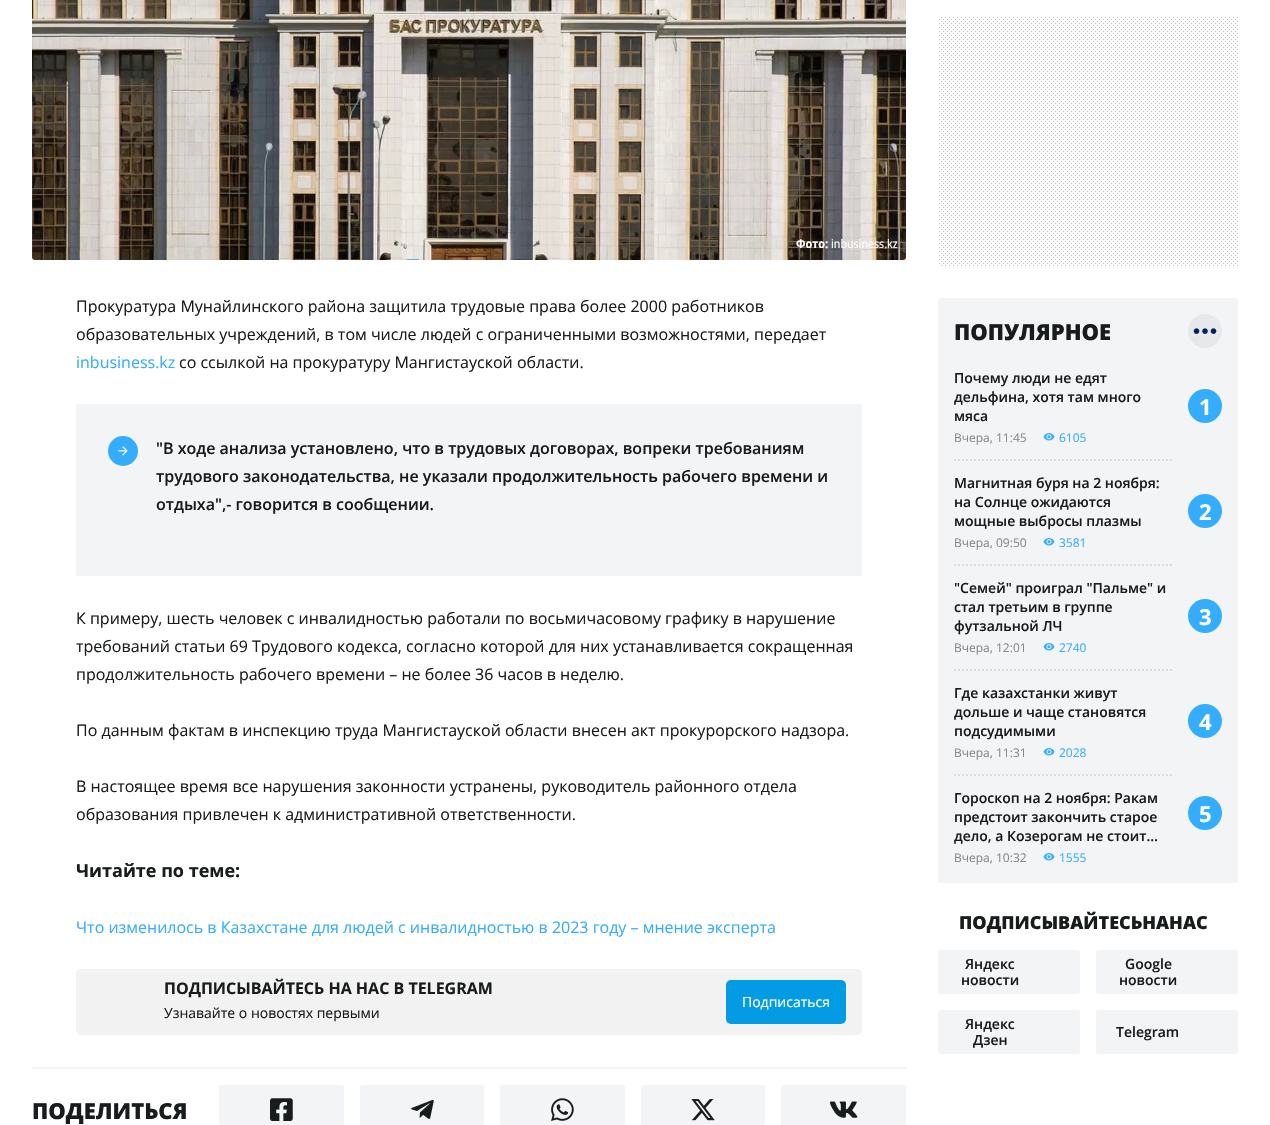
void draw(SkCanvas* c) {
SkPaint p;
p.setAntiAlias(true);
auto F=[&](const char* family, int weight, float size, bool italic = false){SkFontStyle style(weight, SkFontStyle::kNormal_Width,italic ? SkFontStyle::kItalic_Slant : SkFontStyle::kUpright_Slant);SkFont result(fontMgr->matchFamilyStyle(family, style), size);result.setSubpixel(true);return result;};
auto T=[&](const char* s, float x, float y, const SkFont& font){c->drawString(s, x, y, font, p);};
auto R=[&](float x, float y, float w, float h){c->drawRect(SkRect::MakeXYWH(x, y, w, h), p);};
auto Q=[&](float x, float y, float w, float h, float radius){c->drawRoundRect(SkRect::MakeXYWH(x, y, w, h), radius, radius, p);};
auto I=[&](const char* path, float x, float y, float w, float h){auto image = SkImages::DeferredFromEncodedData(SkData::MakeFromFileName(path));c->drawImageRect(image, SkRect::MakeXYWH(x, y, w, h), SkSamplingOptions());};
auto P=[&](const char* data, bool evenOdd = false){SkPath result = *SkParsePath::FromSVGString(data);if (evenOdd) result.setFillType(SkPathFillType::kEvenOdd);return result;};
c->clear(0xffffffff);
I("1.png",32,0,874,260);
auto f1 = F("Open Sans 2",700,12);
p.setColor(0xffffffff);
T("Фото:",796,248,f1);
auto f2 = F("Open Sans 2",400,12);
T("inbusiness.kz",831,248,f2);
auto f3 = F("Open Sans",400,16);
p.setColor(0xff191c1d);
T("Прокуратура Мунайлинского района защитила трудовые права более 2000 работников",76,312,f3);
T("образовательных учреждений, в том числе людей с ограниченными возможностями, передает",76,340,f3);
p.setColor(0xff35adff);
T("inbusiness.kz",76,368,f3);
p.setColor(0xff191c1d);
T("со ссылкой на прокуратуру Мангистауской области.",179,368,f3);
p.setColor(0xfff2f4f6);
Q(76,404,786,172,3);
p.setColor(0xff35adff);
c->drawCircle(123,451,15,p);
I("2.png",118,446,10,10);
auto f4 = F("Open Sans",600,16);
p.setColor(0xff191c1d);
T("\"В ходе анализа установлено, что в трудовых договорах, вопреки требованиям",156,454,f4);
T("трудового законодательства, не указали продолжительность рабочего времени и",156,482,f4);
T("отдыха\",- говорится в сообщении.",156,510,f4);
T("К примеру, шесть человек с инвалидностью работали по восьмичасовому графику в нарушение",76,624,f3);
T("требований статьи 69 Трудового кодекса, согласно которой для них устанавливается сокращенная",76,652,f3);
T("продолжительность рабочего времени – не более 36 часов в неделю.",76,680,f3);
T("По данным фактам в инспекцию труда Мангистауской области внесен акт прокурорского надзора.",76,736,f3);
T("В настоящее время все нарушения законности устранены, руководитель районного отдела",76,792,f3);
T("образования привлечен к административной ответственности.",76,820,f3);
auto f5 = F("Open Sans",700,18);
T("Читайте по теме:",76,877,f5);
p.setColor(0xff35adff);
T("Что изменилось в Казахстане для людей с инвалидностью в 2023 году – мнение эксперта",76,933,f3);
p.setColor(0xfff2f2f2);
Q(76,969,786,66,5);
auto f6 = F("Open Sans",700,16);
p.setColor(0xff191c1d);
T("ПОДПИСЫВАЙТЕСЬ НА НАС В TELEGRAM",164,994,f6);
auto f7 = F("Open Sans",400,14);
T("Узнавайте о новостях первыми",164,1018,f7);
p.setColor(0xff039be4);
Q(726,980,120,44,5);
p.setColor(0xffffffff);
T("Подписаться",742,1007,f7);
p.setColor(0xfff2f4f6);
R(32,1067,874,2);
auto f8 = F("Open Sans",800,22);
p.setColor(0xff191c1d);
T("ПОДЕЛИТЬСЯ",32,1119,f8);
p.setColor(0xfff2f4f6);
Q(219,1085,125,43,3);
I("3.png",270,1098,23,23);
Q(360,1085,124,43,3);
I("4.png",411,1099,23,20);
Q(500,1085,125,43,3);
I("5.png",551,1098,23,23);
Q(641,1085,124,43,3);
I("6.png",691,1099,24,22);
Q(781,1085,125,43,3);
I("7.png",830,1101,28,17);
I("8.png",939,17,299,249);
Q(938,298,300,585,3);
p.setColor(0xff191c1d);
T("ПОПУЛЯРНОЕ",954,340,f8);
p.setColor(0xffe6e8ea);
c->drawCircle(1205,331,17,p);
I("9.png",1193,328,24,6);
p.setStroke(true);
p.setStrokeWidth(2);
p.setColor(0xffdadcdd);
p.setPathEffect(SkDashPathEffect::Make({{2,2}}, 0));
c->drawPath(P("M954 460h218"),p);
p.setPathEffect(nullptr);
auto f9 = F("Open Sans",600,14);
p.setStroke(false);
p.setColor(0xff191c1d);
T("Почему люди не едят",954,383,f9);
T("дельфина, хотя там много",954,402,f9);
T("мяса",954,421,f9);
auto f10 = F("Open Sans",400,12);
p.setColor(0xff86888a);
T("Вчера, 11:45",954,442,f10);
I("10.png",1043,433,12,8);
p.setColor(0xff35adff);
T("6105",1059,442,f10);
c->drawCircle(1205,406,17,p);
auto f11 = F("Open Sans",700,22);
p.setColor(0xffffffff);
T("1",1199,415,f11);
p.setStroke(true);
p.setColor(0xffdadcdd);
p.setPathEffect(SkDashPathEffect::Make({{2,2}}, 0));
c->drawPath(P("M954 565h218"),p);
p.setPathEffect(nullptr);
p.setStroke(false);
p.setColor(0xff191c1d);
T("Магнитная буря на 2 ноября:",954,488,f9);
T("на Солнце ожидаются",954,507,f9);
T("мощные выбросы плазмы",954,526,f9);
p.setColor(0xff86888a);
T("Вчера, 09:50",954,547,f10);
I("10.png",1043,538,12,8);
p.setColor(0xff35adff);
T("3581",1059,547,f10);
c->drawCircle(1205,511,17,p);
p.setColor(0xffffffff);
T("2",1199,520,f11);
p.setStroke(true);
p.setColor(0xffdadcdd);
p.setPathEffect(SkDashPathEffect::Make({{2,2}}, 0));
c->drawPath(P("M954 670h218"),p);
p.setPathEffect(nullptr);
p.setStroke(false);
p.setColor(0xff191c1d);
T("\"Семей\" проиграл \"Пальме\" и",954,593,f9);
T("стал третьим в группе",954,612,f9);
T("футзальной ЛЧ",954,631,f9);
p.setColor(0xff86888a);
T("Вчера, 12:01",954,652,f10);
I("10.png",1043,643,12,8);
p.setColor(0xff35adff);
T("2740",1059,652,f10);
c->drawCircle(1205,616,17,p);
p.setColor(0xffffffff);
T("3",1199,625,f11);
p.setStroke(true);
p.setColor(0xffdadcdd);
p.setPathEffect(SkDashPathEffect::Make({{2,2}}, 0));
c->drawPath(P("M954 775h218"),p);
p.setPathEffect(nullptr);
p.setStroke(false);
p.setColor(0xff191c1d);
T("Где казахстанки живут",954,698,f9);
T("дольше и чаще становятся",954,717,f9);
T("подсудимыми",954,736,f9);
p.setColor(0xff86888a);
T("Вчера, 11:31",954,757,f10);
I("10.png",1043,748,12,8);
p.setColor(0xff35adff);
T("2028",1059,757,f10);
c->drawCircle(1205,721,17,p);
p.setColor(0xffffffff);
T("4",1199,730,f11);
p.setColor(0xff191c1d);
T("Гороскоп на 2 ноября: Ракам",954,803,f9);
T("предстоит закончить старое",954,822,f9);
T("дело, а Козерогам не стоит…",954,841,f9);
p.setColor(0xff86888a);
T("Вчера, 10:32",954,862,f10);
I("10.png",1043,853,12,8);
p.setColor(0xff35adff);
T("1555",1059,862,f10);
c->drawCircle(1205,813,17,p);
p.setColor(0xffffffff);
T("5",1199,822,f11);
auto f12 = F("Open Sans",800,18);
p.setColor(0xff191c1d);
T("ПОДПИСЫВАЙТЕСЬ НА НАС",959,929,f12);
p.setColor(0xfff2f4f6);
Q(938,950,142,44,3);
p.setColor(0xff191c1d);
T("Яндекс",965,969,f9);
T("новости",961,985,f9);
p.setColor(0xfff2f4f6);
Q(1096,950,142,44,3);
p.setColor(0xff191c1d);
T("Google",1125,969,f9);
T("новости",1119,985,f9);
p.setColor(0xfff2f4f6);
Q(938,1010,142,44,3);
p.setColor(0xff191c1d);
T("Яндекс",965,1029,f9);
T("Дзен",973,1045,f9);
p.setColor(0xfff2f4f6);
Q(1096,1010,142,44,3);
p.setColor(0xff191c1d);
T("Telegram",1116,1037,f9);
}
